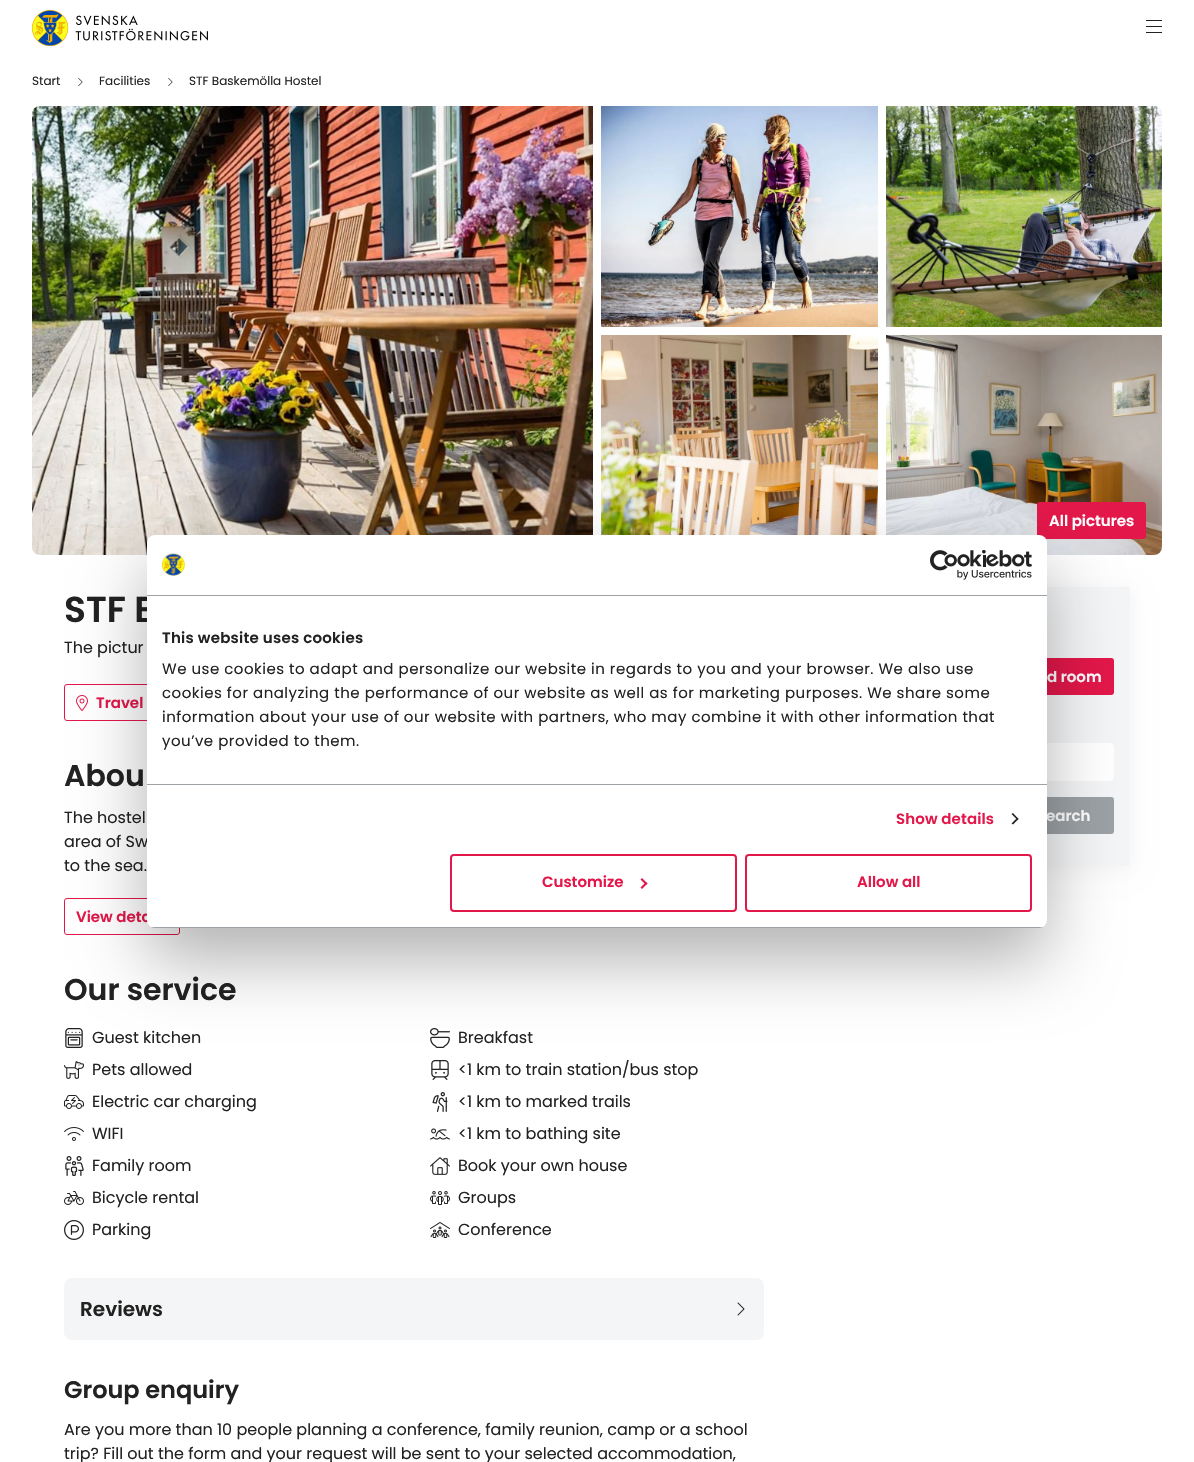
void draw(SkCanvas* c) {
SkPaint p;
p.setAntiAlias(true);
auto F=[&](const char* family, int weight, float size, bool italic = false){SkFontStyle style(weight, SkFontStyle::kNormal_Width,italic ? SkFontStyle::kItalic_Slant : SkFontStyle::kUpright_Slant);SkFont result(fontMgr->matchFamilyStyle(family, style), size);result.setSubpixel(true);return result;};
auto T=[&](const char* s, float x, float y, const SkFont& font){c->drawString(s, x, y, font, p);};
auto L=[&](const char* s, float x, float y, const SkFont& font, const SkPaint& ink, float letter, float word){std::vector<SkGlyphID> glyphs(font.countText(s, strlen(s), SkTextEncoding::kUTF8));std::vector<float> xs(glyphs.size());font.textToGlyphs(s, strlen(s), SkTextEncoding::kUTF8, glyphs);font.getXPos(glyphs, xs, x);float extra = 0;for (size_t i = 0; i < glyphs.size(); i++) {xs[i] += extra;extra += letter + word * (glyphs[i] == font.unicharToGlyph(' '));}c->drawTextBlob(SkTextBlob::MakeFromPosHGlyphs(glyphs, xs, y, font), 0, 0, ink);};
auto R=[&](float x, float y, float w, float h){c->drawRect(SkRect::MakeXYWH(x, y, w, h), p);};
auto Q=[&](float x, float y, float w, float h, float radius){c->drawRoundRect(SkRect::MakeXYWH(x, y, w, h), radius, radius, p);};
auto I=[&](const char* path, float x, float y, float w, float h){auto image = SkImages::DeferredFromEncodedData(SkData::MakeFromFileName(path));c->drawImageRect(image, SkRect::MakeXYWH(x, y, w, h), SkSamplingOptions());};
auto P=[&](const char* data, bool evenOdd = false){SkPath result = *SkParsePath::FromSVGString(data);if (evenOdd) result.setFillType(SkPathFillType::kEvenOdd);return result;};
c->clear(0xffffffff);
I("1.png",32,10,176,36);
p.setColor(0xff222222);
R(1146,20,16,1);
R(1146,26,16,1);
R(1146,32,16,1);
auto f1 = F("Poppins",400,12);
T("Start",32,85,f1);
I("2.png",78,78,5,8);
T("Facilities",99,85,f1);
I("2.png",168,78,5,8);
T("STF Baskemölla Hostel",189,85,f1);
I("3.png",32,106,561,449);
I("4.png",601,106,277,221);
I("5.png",886,106,276,221);
I("6.png",601,335,277,200);
I("7.png",886,335,276,220);
p.setColor(0xffe3174a);
Q(1037,502,109,37,3);
auto f2 = F("Poppins",600,15);
p.setColor(0xffffffff);
T("All pictures",1049,526,f2);
auto f3 = F("Poppins",600,36);
p.setColor(0xff222222);
T("STF B",64,622,f3);
auto f4 = F("Poppins",400,16);
T("The pictur",64,653,f4);
p.setStroke(true);
p.setStrokeWidth(1);
p.setColor(0xffe3174a);
c->drawRoundRect(SkRect::MakeXYWH(64.5,684.5,184,36),2.5,2.5,p);
I("8.png",76,695,12,16);
p.setStroke(false);
T("Travel",96,708,f2);
auto f5 = F("Poppins",600,30);
p.setColor(0xff222222);
T("Abou",64,786,f5);
T("The hostel",64,823,f4);
T("area of Sw",64,847,f4);
T("to the sea.",64,871,f4);
p.setStroke(true);
p.setColor(0xffe3174a);
c->drawRoundRect(SkRect::MakeXYWH(64.5,898.5,115,36),2.5,2.5,p);
p.setStroke(false);
T("View deta",76,922,f2);
p.setColor(0xff222222);
T("Our service",64,1000,f5);
I("9.png",65,1028,18,20);
T("Guest kitchen",92,1043,f4);
I("10.png",64,1061,20,18);
T("Pets allowed",92,1075,f4);
I("11.png",64,1095,20,14);
T("Electric car charging",92,1107,f4);
I("12.png",64,1127,20,14);
T("WIFI",92,1139,f4);
I("13.png",65,1156,19,20);
T("Family room",92,1171,f4);
I("14.png",64,1191,20,14);
T("Bicycle rental",92,1203,f4);
I("15.png",64,1220,20,20);
T("Parking",92,1235,f4);
I("16.png",430,1028,20,20);
T("Breakfast",458,1043,f4);
I("17.png",431,1060,18,20);
T("<1 km to train station/bus stop",458,1075,f4);
I("18.png",432,1092,16,20);
T("<1 km to marked trails",458,1107,f4);
I("19.png",430,1128,20,12);
T("<1 km to bathing site",458,1139,f4);
I("20.png",430,1157,20,18);
T("Book your own house",458,1171,f4);
I("21.png",430,1191,20,14);
T("Groups",458,1203,f4);
I("22.png",430,1222,20,16);
T("Conference",458,1235,f4);
p.setColor(0xfff4f5f6);
Q(64,1278,700,62,8);
auto f6 = F("Poppins",600,20);
p.setColor(0xff222222);
T("Reviews",80,1316,f6);
I("23.png",737,1302,8,14);
auto f7 = F("Poppins",600,24);
T("Group enquiry",64,1398,f7);
T("Are you more than 10 people planning a conference, family reunion, camp or a school",64,1435,f4);
T("trip? Fill out the form and your request will be sent to your selected accommodation,",64,1459,f4);
p.setColor(0x0d000000);
p.setMaskFilter(SkMaskFilter::MakeBlur(kNormal_SkBlurStyle, 10));
c->drawRect(SkRect::MakeXYWH(797,591,334,279),p);
p.setMaskFilter(nullptr);
p.setColor(0xfff4f5f6);
R(1047,587,83,279);
p.setColor(0xffe3174a);
Q(990,658,124,37,3);
p.setColor(0xffffffff);
T("d room",1047,682,f2);
c->drawRoundRect(SkRect::MakeXYWH(812.5,743.5,301,37),3.5,3.5,p);
p.setStroke(true);
c->drawRoundRect(SkRect::MakeXYWH(812.5,743.5,301,37),3.5,3.5,p);
p.setStroke(false);
p.setColor(0xff9ca1a5);
Q(1013,797,101,37,3);
p.setColor(0xffffffff);
T("earch",1046,821,f2);
p.setColor(0x4d000000);
p.setMaskFilter(SkMaskFilter::MakeBlur(kNormal_SkBlurStyle, 34));
c->drawRoundRect(SkRect::MakeXYWH(147,567,900,393),8,8,p);
p.setMaskFilter(nullptr);
p.setColor(0xffffffff);
Q(147,535,900,393,8);
p.setColor(0xff9ca1a5);
R(147,595,900,1);
I("24.png",162,553,23,23);
I("25.png",930,550,102,30);
R(147,784,900,1);
p.setColor(0xff222222);
L("This website uses cookies",162,643,f2,p,.25,0);
auto f8 = F("Poppins",400,15);
L("We use cookies to adapt and personalize our website in regards to you and your browser. We also use",162,674,f8,p,.5,0);
L("cookies for analyzing the performance of our website as well as for marketing purposes. We share some",162,698,f8,p,.5,0);
L("information about your use of our website with partners, who may combine it with other information that",162,722,f8,p,.5,0);
L("you’ve provided to them.",162,746,f8,p,.5,0);
p.setColor(0xffe3174a);
L("Show details",896,824,f2,p,.1,0);
p.setColor(0xff222222);
c->drawPath(P("M1013 813l5.5 6l-1 1l-6-6z"),p);
c->drawPath(P("M1017.5 817.5l1 1.5l-5.5 5.5l-1.5-1z"),p);
c->save();
c->clipPath(P("M155 535h884c4.5 0 8 3.5 8 8v377c0 4.5-3.5 8-8 8h-884c-4.5 0-8-3.5-8-8v-377c0-4.5 3.5-8 8-8z"),true);
p.setColor(0xff9ca1a5);
R(147,927,900,1);
c->restore();
p.setStroke(true);
p.setStrokeWidth(2);
p.setColor(0xffe3174a);
c->drawRoundRect(SkRect::MakeXYWH(451,855,285,56),3,3,p);
p.setStroke(false);
T("Customize",542,887,f2);
c->drawPath(P("M642 878l5.5 5.5l-1.5 1.5l-5.5-5.5z"),p);
c->drawPath(P("M646 882l1.5 1.5l-5.5 5.5l-1.5-1.5z"),p);
p.setStroke(true);
c->drawRoundRect(SkRect::MakeXYWH(746,855,285,56),3,3,p);
p.setStroke(false);
T("Allow all",857,887,f2);
}
